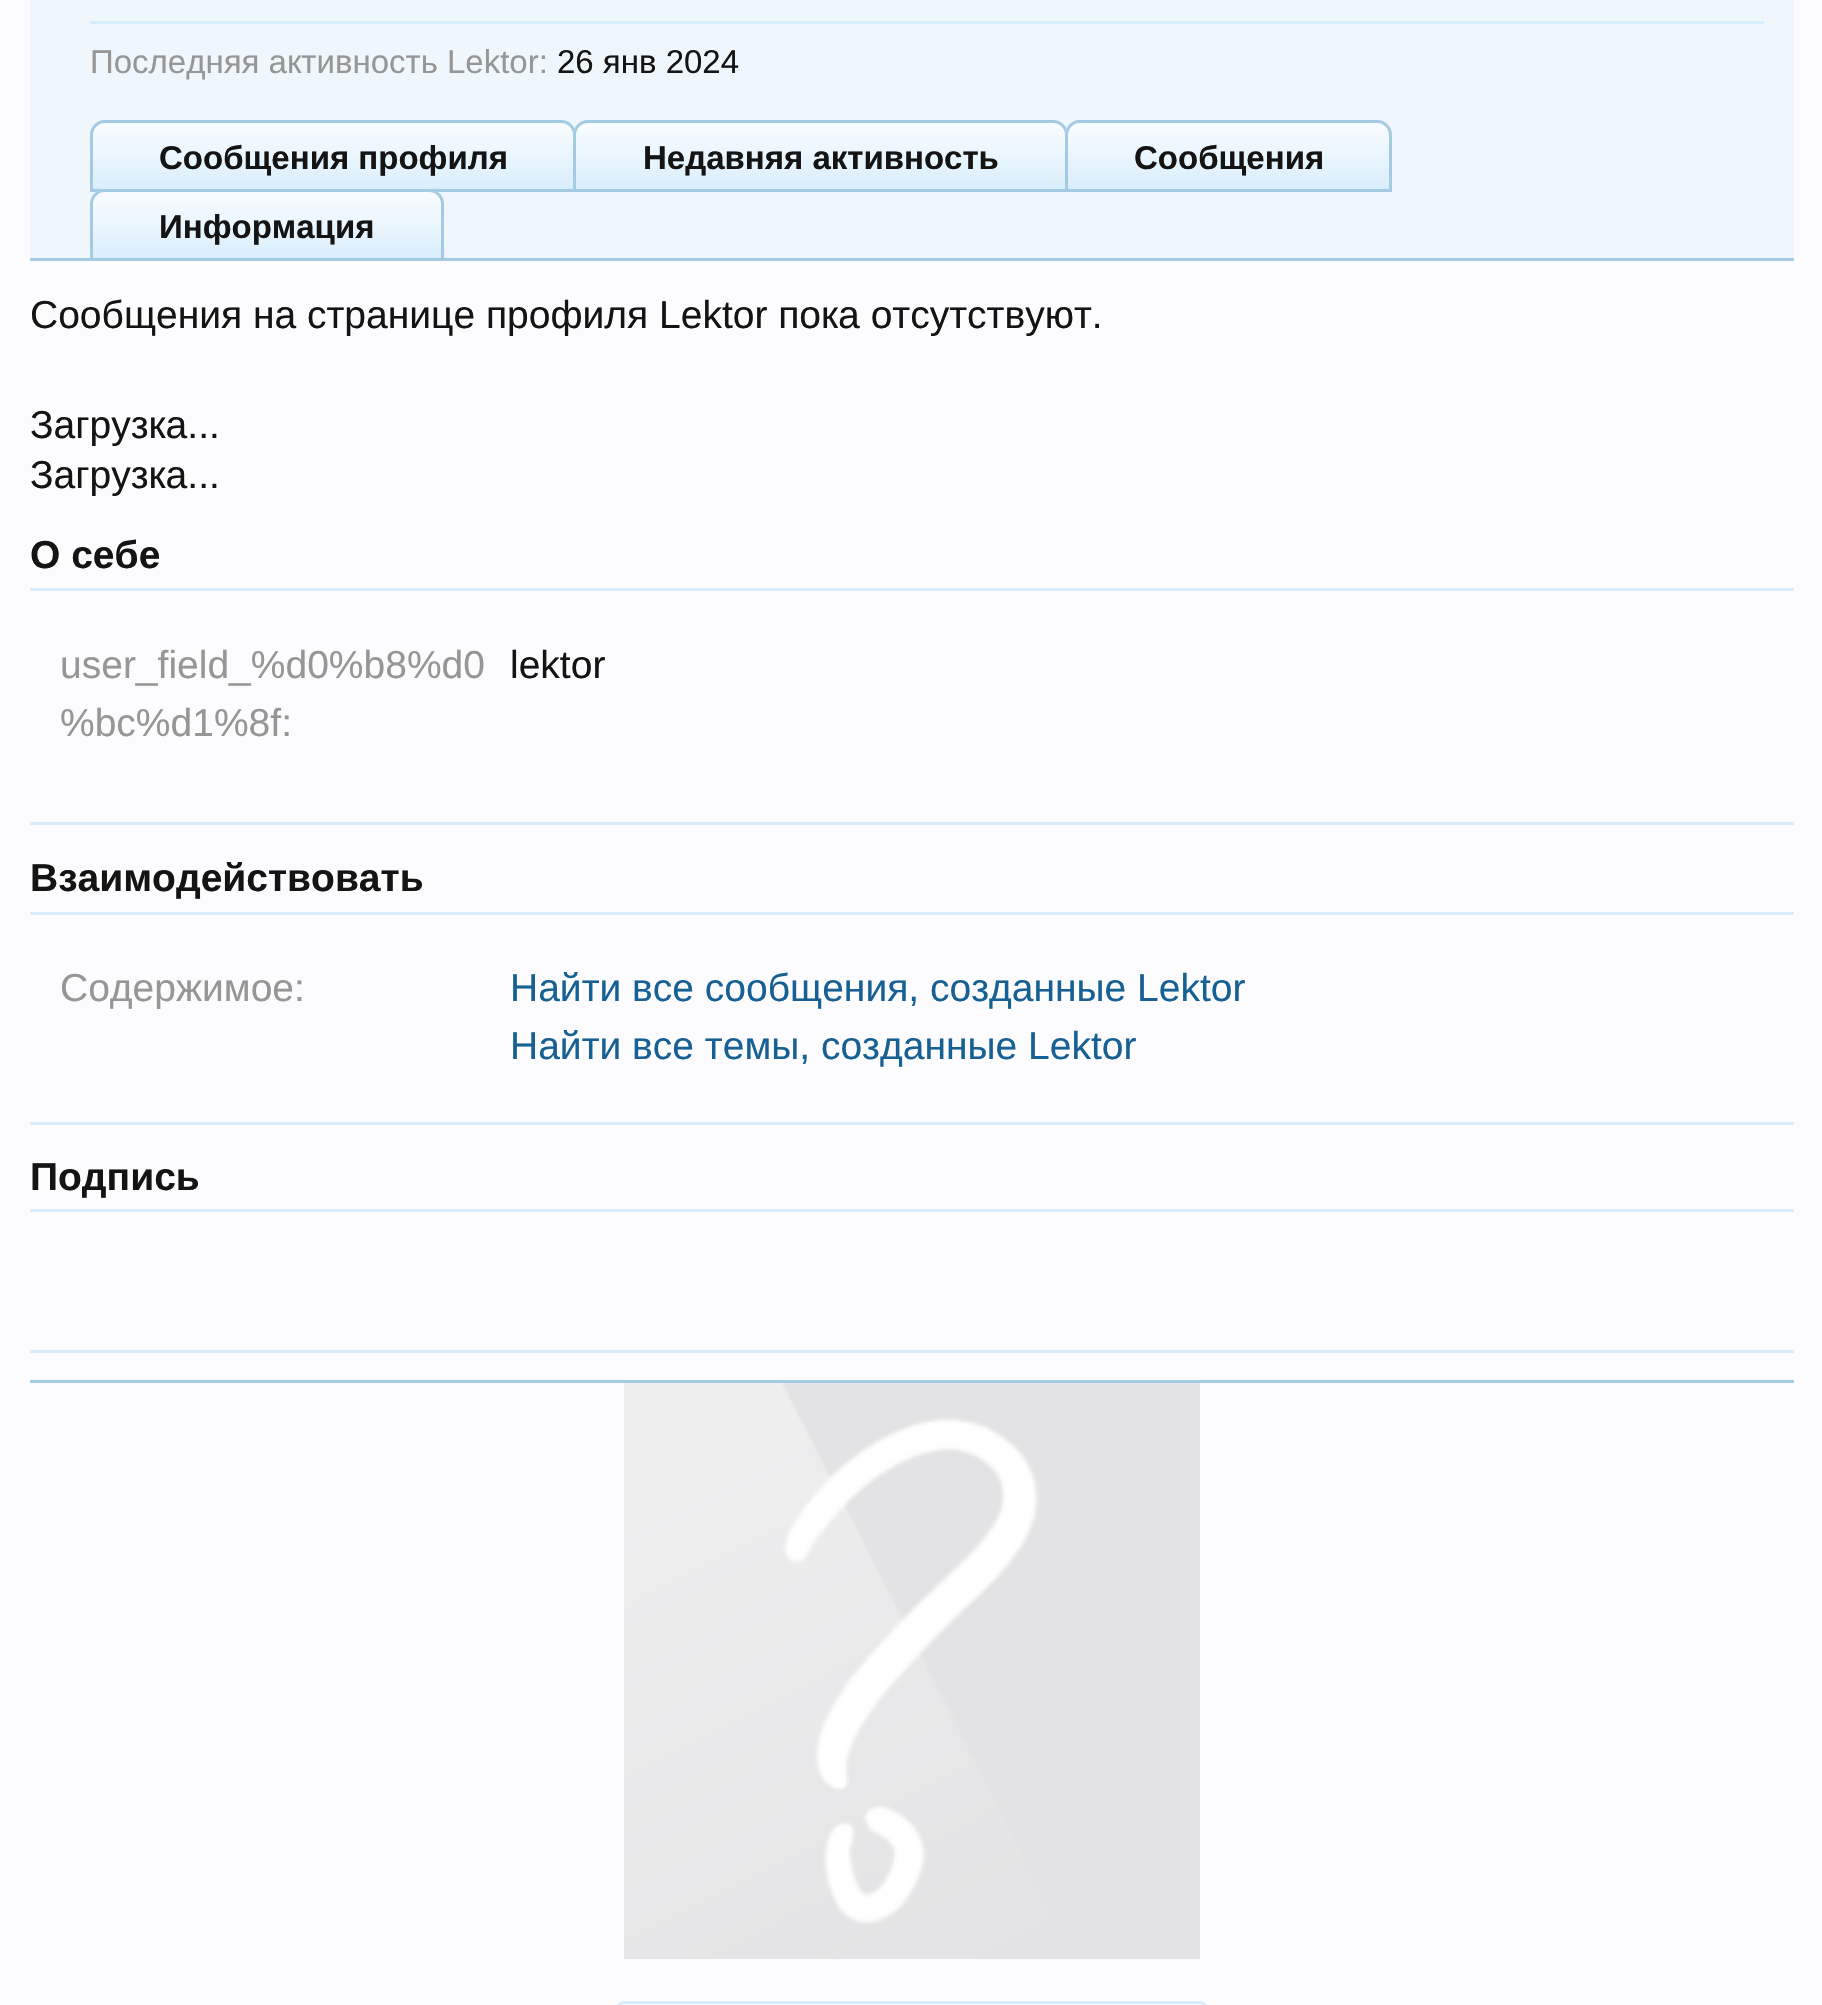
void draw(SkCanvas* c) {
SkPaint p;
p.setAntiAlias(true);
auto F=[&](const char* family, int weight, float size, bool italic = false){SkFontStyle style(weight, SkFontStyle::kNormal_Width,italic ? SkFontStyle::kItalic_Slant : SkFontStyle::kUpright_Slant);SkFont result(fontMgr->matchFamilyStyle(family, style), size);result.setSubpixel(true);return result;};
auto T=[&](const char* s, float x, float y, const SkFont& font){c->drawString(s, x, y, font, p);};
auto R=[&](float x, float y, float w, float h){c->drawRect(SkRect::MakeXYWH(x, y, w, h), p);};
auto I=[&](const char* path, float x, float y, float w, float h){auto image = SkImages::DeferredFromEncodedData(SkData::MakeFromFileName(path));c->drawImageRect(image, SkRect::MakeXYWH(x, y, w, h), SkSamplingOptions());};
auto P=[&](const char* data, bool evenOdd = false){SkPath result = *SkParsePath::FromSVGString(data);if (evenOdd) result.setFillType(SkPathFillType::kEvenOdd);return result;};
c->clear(0xfffcfcff);
p.setColor(0xffa5cae4);
R(30,1380,1764,3);
p.setColor(0xfff0f7fc);
R(30,0,1764,258);
p.setColor(0xffd7edfc);
R(90,21,1674,3);
auto f1 = F("Liberation Sans",400,33);
p.setColor(0xff969696);
T("Последняя активность Lektor:",90,73,f1);
p.setColor(0xff141414);
T("26 янв 2024",557,73,f1);
p.setColor(0xffa5cae4);
R(30,258,1764,3);
p.setColor(0xffd7edfc);
c->drawPath(P("M105 120h456c8.5 0 15 6.5 15 15v57h-486v-57c0-8.5 6.5-15 15-15z"),p);
I("1.png",90,123,485,64);
p.setStroke(true);
p.setStrokeWidth(3);
p.setColor(0xffa5cae4);
c->drawPath(P("M105 121.5h456c7.5 0 13.5 6 13.5 13.5v55.5h-483v-55.5c0-7.5 6-13.5 13.5-13.5z"),p);
auto f2 = F("Liberation Sans",700,33);
p.setStroke(false);
p.setColor(0xff141414);
T("Сообщения профиля",159,169,f2);
p.setColor(0xffd7edfc);
c->drawPath(P("M588 120h465c8.5 0 15 6.5 15 15v57h-495v-57c0-8.5 6.5-15 15-15z"),p);
I("2.png",573,123,494,64);
p.setStroke(true);
p.setColor(0xffa5cae4);
c->drawPath(P("M588 121.5h465c7.5 0 13.5 6 13.5 13.5v55.5h-492v-55.5c0-7.5 6-13.5 13.5-13.5z"),p);
p.setStroke(false);
p.setColor(0xff141414);
T("Недавняя активность",643,169,f2);
p.setColor(0xffd7edfc);
c->drawPath(P("M1080 120h297c8.5 0 15 6.5 15 15v57h-327v-57c0-8.5 6.5-15 15-15z"),p);
I("3.png",1065,123,327,64);
p.setStroke(true);
p.setColor(0xffa5cae4);
c->drawPath(P("M1080 121.5h297c7.5 0 13.5 6 13.5 13.5v55.5h-324v-55.5c0-7.5 6-13.5 13.5-13.5z"),p);
p.setStroke(false);
p.setColor(0xff141414);
T("Сообщения",1134,169,f2);
p.setColor(0xffd7edfc);
c->drawPath(P("M105 189h324c8.5 0 15 6.5 15 15v57h-354v-57c0-8.5 6.5-15 15-15z"),p);
I("4.png",90,192,354,64);
p.setStroke(true);
p.setColor(0xffa5cae4);
c->drawPath(P("M105 190.5h324c7.5 0 13.5 6 13.5 13.5v55.5h-351v-55.5c0-7.5 6-13.5 13.5-13.5z"),p);
p.setStroke(false);
p.setColor(0xff141414);
T("Информация",159,238,f2);
auto f3 = F("Liberation Sans",400,39);
T("Сообщения на странице профиля Lektor пока отсутствуют.",30,328,f3);
T("Загрузка...",30,438,f3);
T("Загрузка...",30,488,f3);
p.setColor(0xffd7edfc);
R(30,588,1764,3);
auto f4 = F("Liberation Sans",700,39);
p.setColor(0xff141414);
T("О себе",30,568,f4);
p.setColor(0xffd7edfc);
R(30,822,1764,3);
p.setColor(0xff969696);
T("user_field_%d0%b8%d0",60,678,f3);
T("%bc%d1%8f:",60,736,f3);
p.setColor(0xff141414);
T("lektor",510,678,f3);
p.setColor(0xffd7edfc);
R(30,912,1764,3);
p.setColor(0xff141414);
T("Взаимодействовать",30,891,f4);
p.setColor(0xffd7edfc);
R(30,1122,1764,3);
p.setColor(0xff969696);
T("Содержимое:",60,1001,f3);
p.setColor(0xff176093);
T("Найти все сообщения, созданные Lektor",510,1001,f3);
T("Найти все темы, созданные Lektor",510,1059,f3);
p.setColor(0xffd7edfc);
R(30,1209,1764,3);
p.setColor(0xff141414);
T("Подпись",30,1190,f4);
p.setColor(0xffd7edfc);
R(30,1350,1764,3);
I("5.png",624,1383,576,576);
p.setStroke(true);
c->drawRoundRect(SkRect::MakeXYWH(616.5,2002.5,591,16),10.5,10.5,p);
}
